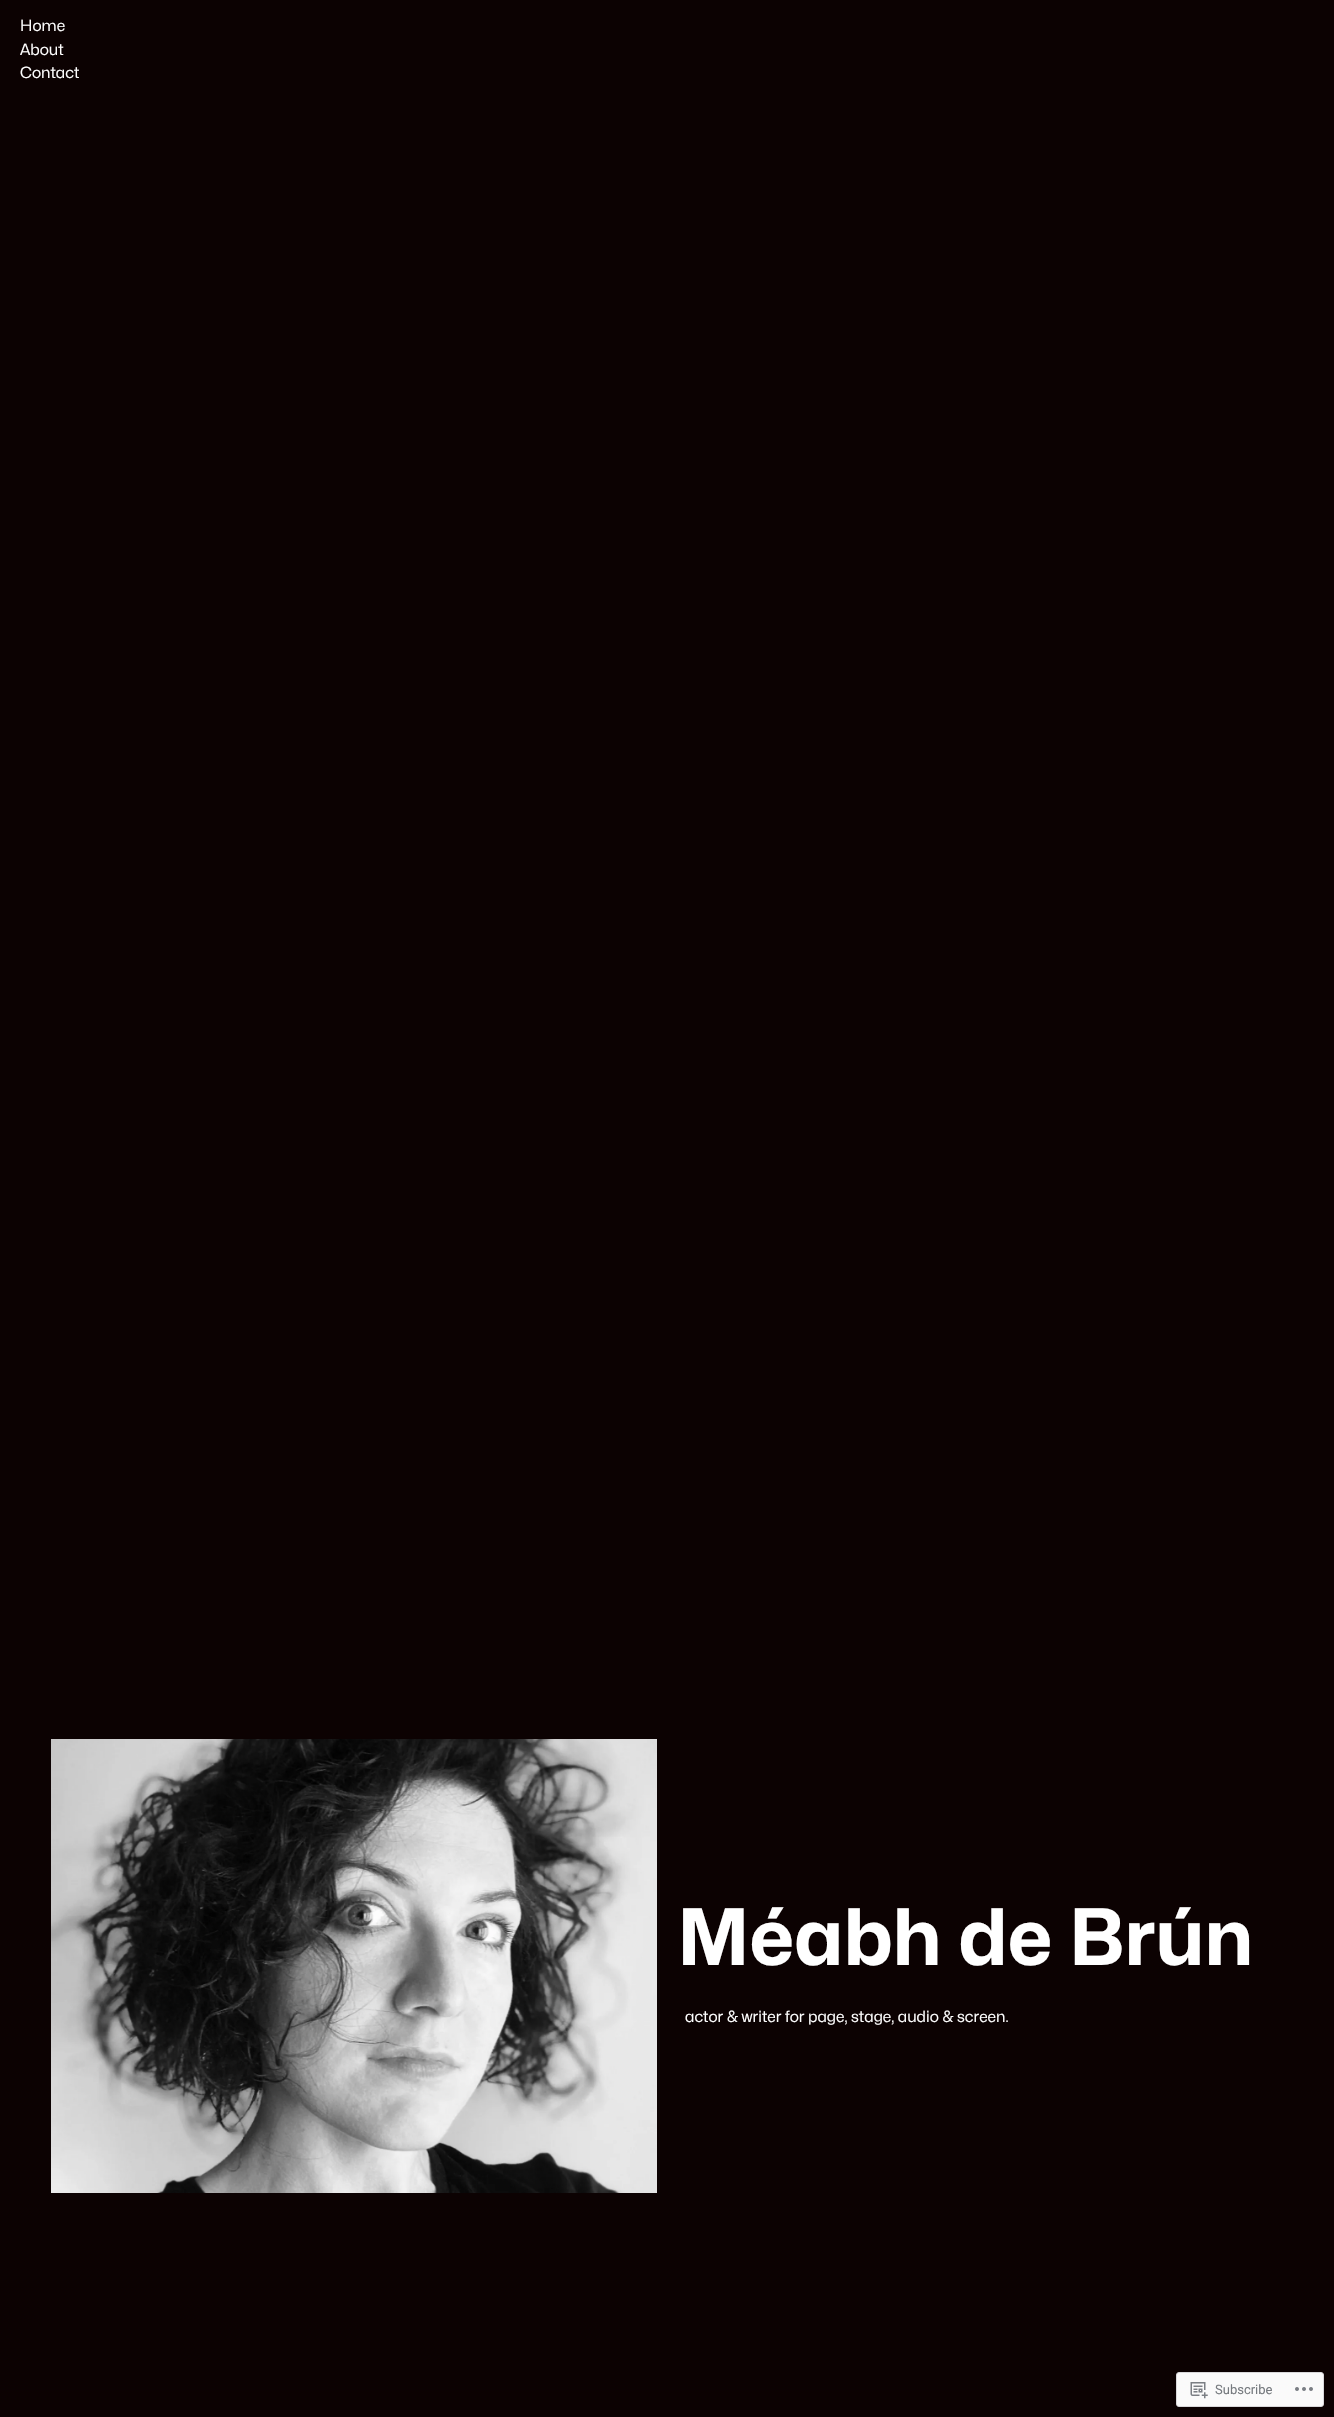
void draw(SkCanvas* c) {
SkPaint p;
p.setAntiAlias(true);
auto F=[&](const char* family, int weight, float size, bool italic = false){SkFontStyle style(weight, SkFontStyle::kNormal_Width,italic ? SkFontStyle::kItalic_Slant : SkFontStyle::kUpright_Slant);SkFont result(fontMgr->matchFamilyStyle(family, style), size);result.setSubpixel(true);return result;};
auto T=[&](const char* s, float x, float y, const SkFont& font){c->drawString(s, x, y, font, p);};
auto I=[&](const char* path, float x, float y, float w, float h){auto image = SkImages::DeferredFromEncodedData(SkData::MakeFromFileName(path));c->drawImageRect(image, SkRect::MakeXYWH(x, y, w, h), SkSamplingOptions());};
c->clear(0xff0c0202);
auto f1 = F("Mona Sans",400,15.6);
p.setColor(0xffffffff);
T("Home",20,31,f1);
T("About",20,55,f1);
T("Contact",20,78,f1);
I("1.png",51,1739,606,454);
auto f2 = F("Mona Sans",700,77.75);
T("Méabh de Brún",677,1965,f2);
T("actor & writer for page, stage, audio & screen.",685,2022,f1);
p.setColor(0xfffafafa);
c->drawRoundRect(SkRect::MakeXYWH(1176.5,2372.5,147,34),2.5,2.5,p);
p.setStroke(true);
p.setStrokeWidth(1);
p.setColor(0xffd8d8da);
c->drawRoundRect(SkRect::MakeXYWH(1176.5,2372.5,147,34),2.5,2.5,p);
I("2.png",1190,2382,18,17);
auto f3 = F("Roboto",400,13);
p.setStroke(false);
p.setColor(0xff767a7f);
T("Subscribe",1215,2394,f3);
I("3.png",1295,2387,18,4);
}
